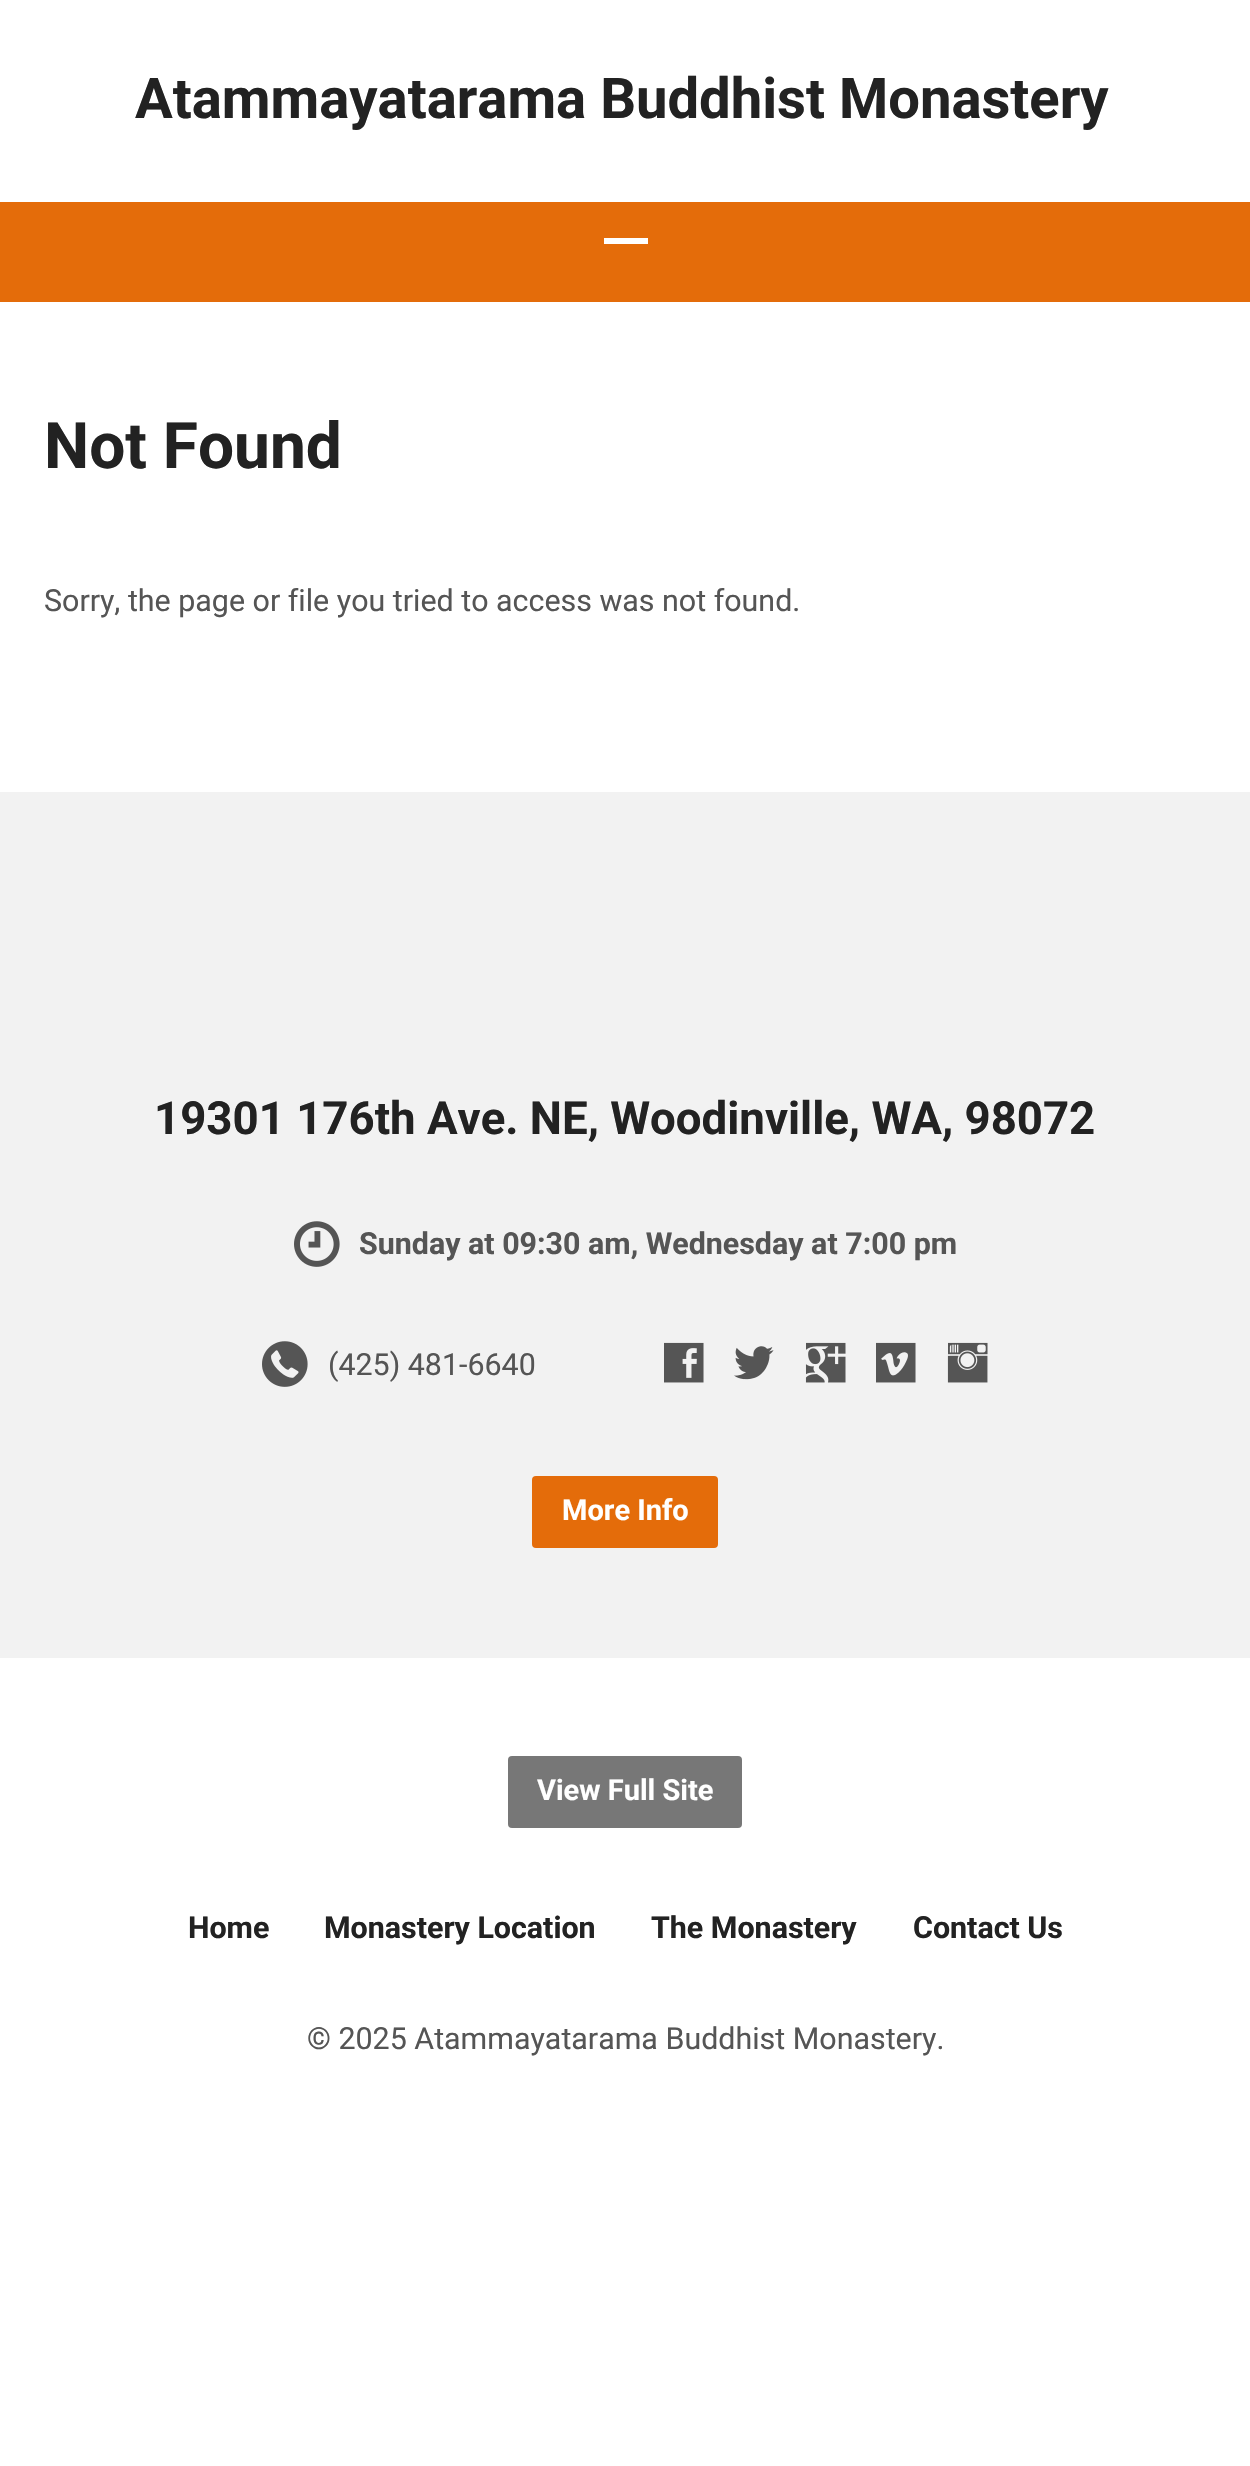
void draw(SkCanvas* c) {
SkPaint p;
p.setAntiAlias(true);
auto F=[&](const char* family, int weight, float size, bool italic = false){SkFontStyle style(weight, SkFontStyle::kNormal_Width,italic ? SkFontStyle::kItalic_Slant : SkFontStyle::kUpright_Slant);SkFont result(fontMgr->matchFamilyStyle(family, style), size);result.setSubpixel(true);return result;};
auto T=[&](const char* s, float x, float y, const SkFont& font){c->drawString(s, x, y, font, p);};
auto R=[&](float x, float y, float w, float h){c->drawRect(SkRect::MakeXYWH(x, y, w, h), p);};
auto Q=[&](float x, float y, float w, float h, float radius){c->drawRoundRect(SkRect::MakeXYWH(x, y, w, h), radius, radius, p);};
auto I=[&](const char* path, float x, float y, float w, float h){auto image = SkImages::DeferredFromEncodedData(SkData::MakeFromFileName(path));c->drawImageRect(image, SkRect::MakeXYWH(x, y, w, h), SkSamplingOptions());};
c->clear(0xffffffff);
auto f1 = F("Roboto",700,56.2);
p.setColor(0xff222222);
T("Atammayatarama Buddhist Monastery",135,118,f1);
p.setColor(0xffe46c0a);
R(0,202,1250,100);
p.setColor(0xffffffff);
R(604,238,44,6);
auto f2 = F("Roboto",700,64);
p.setColor(0xff222222);
T("Not Found",44,468,f2);
auto f3 = F("Roboto",400,30.4);
p.setColor(0xff555555);
T("Sorry, the page or file you tried to access was not found.",44,611,f3);
p.setColor(0xfff2f2f2);
R(0,792,1250,866);
auto f4 = F("Roboto",700,45.6);
p.setColor(0xff222222);
T("19301 176th Ave. NE, Woodinville, WA, 98072",154,1134,f4);
I("1.png",294,1221,46,46);
auto f5 = F("Roboto",700,30.4);
p.setColor(0xff555555);
T("Sunday at 09:30 am, Wednesday at 7:00 pm",359,1254,f5);
I("2.png",262,1341,46,46);
T("(425) 481-6640",328,1375,f3);
I("3.png",664,1342,40,41);
I("4.png",734,1346,40,34);
I("5.png",805,1342,41,41);
I("6.png",876,1342,40,41);
I("7.png",947,1342,41,41);
p.setColor(0xffe46c0a);
Q(532,1476,186,72,4);
auto f6 = F("Roboto",700,29);
p.setColor(0xffffffff);
T("More Info",562,1520,f6);
p.setColor(0xff777777);
Q(508,1756,234,72,4);
p.setColor(0xffffffff);
T("View Full Site",537,1800,f6);
p.setColor(0xff222222);
T("Home",188,1938,f5);
T("Monastery Location",324,1938,f5);
T("The Monastery",651,1938,f5);
T("Contact Us",913,1938,f5);
p.setColor(0xff555555);
T("© 2025 Atammayatarama Buddhist Monastery.",307,2049,f3);
}
